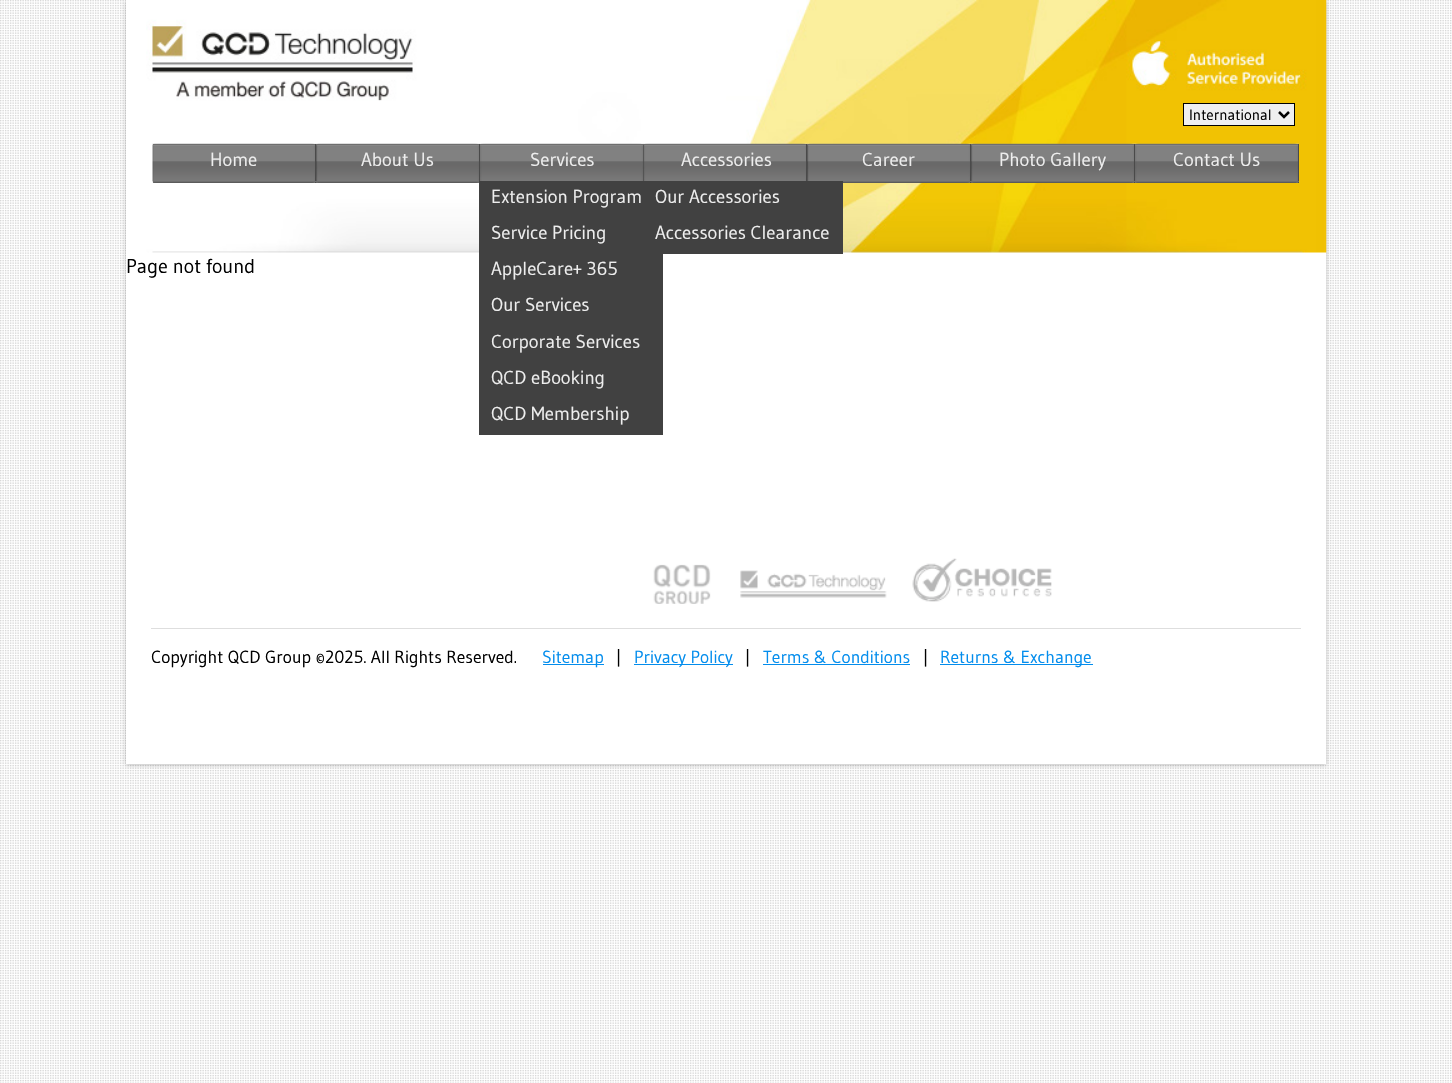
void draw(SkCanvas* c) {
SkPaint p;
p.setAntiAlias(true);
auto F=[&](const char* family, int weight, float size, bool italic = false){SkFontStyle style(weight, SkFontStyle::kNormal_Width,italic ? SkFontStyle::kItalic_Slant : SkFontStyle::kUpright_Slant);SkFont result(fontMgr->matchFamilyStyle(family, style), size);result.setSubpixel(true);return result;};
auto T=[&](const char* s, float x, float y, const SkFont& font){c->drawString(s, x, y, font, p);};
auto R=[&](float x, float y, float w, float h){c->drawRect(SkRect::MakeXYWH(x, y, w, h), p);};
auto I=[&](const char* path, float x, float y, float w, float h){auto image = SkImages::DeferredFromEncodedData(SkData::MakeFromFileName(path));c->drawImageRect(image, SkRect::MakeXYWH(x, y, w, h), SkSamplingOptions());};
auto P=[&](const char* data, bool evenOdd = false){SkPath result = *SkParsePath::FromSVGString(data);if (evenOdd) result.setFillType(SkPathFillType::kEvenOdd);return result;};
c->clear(0xffffffff);
I("1.png",0,0,1452,1083);
p.setColor(0x40000000);
p.setMaskFilter(SkMaskFilter::MakeBlur(kNormal_SkBlurStyle, 2));
c->drawRect(SkRect::MakeXYWH(126,1,1200,764),p);
p.setMaskFilter(nullptr);
p.setColor(0xffffffff);
R(126,0,1200,764);
auto f1 = F("Gudea",400,20);
p.setColor(0xff000000);
T("Page not found",126,273,f1);
I("2.png",146,0,1181,253);
p.setColor(0xffefefef);
c->drawRect(SkRect::MakeXYWH(1183.5,103.5,111,22),p);
p.setStroke(true);
p.setStrokeWidth(1);
p.setColor(0xff000000);
c->drawRect(SkRect::MakeXYWH(1183.5,103.5,111,22),p);
p.setStrokeWidth(2.5);
c->drawPath(P("M1279 112l5 5l5-5"),p);
auto f2 = F("Gudea",400,15);
p.setStroke(false);
T("International",1189,120,f2);
R(153,145,1145,38);
I("3.png",152,143,165,40);
p.setColor(0xff6e6e6e);
R(153,144,163,1);
p.setColor(0xff4a4a4a);
R(315,144,1,39);
p.setColor(0xff6e6e6e);
R(153,181,163,1);
auto f3 = F("Gudea",400,18.75);
p.setColor(0xffeeeeee);
T("Home",210,166,f3);
I("4.png",316,143,164,40);
p.setColor(0xff6e6e6e);
R(316,144,164,1);
p.setColor(0xff4a4a4a);
R(479,144,1,39);
p.setColor(0xff6e6e6e);
R(316,181,164,1);
p.setColor(0xffeeeeee);
T("About Us",361,166,f3);
I("5.png",480,143,164,38);
p.setColor(0xff6e6e6e);
R(480,144,164,1);
p.setColor(0xff4a4a4a);
R(643,144,1,39);
p.setColor(0xffeeeeee);
T("Services",530,166,f3);
p.setColor(0xff414141);
R(479,181,164,73);
p.setColor(0xffeeeeee);
T("Extension Program",491,203,f3);
T("Service Pricing",491,239,f3);
p.setColor(0xff414141);
R(479,254,184,181);
p.setColor(0xffeeeeee);
T("AppleCare+ 365",491,275,f3);
T("Our Services",491,311,f3);
T("Corporate Services",491,348,f3);
T("QCD eBooking",491,384,f3);
T("QCD Membership",491,420,f3);
I("7.png",807,143,165,40);
I("6.png",643,143,165,38);
p.setColor(0xff6e6e6e);
R(644,144,164,1);
p.setColor(0xff4a4a4a);
R(806,144,1,39);
p.setColor(0xffeeeeee);
T("Accessories",681,166,f3);
p.setColor(0xff414141);
R(643,181,200,73);
p.setColor(0xffeeeeee);
T("Our Accessories",655,203,f3);
T("Accessories Clearance",655,239,f3);
p.setColor(0xff6e6e6e);
R(808,144,163,1);
p.setColor(0xff4a4a4a);
R(970,144,1,39);
p.setColor(0xff6e6e6e);
R(843,181,128,1);
p.setColor(0xffeeeeee);
T("Career",862,166,f3);
I("8.png",971,143,164,40);
p.setColor(0xff6e6e6e);
R(971,144,164,1);
p.setColor(0xff4a4a4a);
R(1134,144,1,39);
p.setColor(0xff6e6e6e);
R(971,181,164,1);
p.setColor(0xffeeeeee);
T("Photo Gallery",999,166,f3);
I("9.png",1135,143,164,40);
p.setColor(0xff6e6e6e);
R(1135,144,164,1);
p.setColor(0xff4a4a4a);
R(1298,144,1,39);
p.setColor(0xff6e6e6e);
R(1135,181,164,1);
p.setColor(0xffeeeeee);
T("Contact Us",1173,166,f3);
I("10.png",653,564,58,40);
I("11.png",740,570,147,28);
I("12.png",912,558,140,44);
p.setColor(0xffdedede);
R(151,628,1150,1);
auto f4 = F("Gudea",400,17.5);
p.setColor(0xff000000);
T("Copyright QCD Group ©2025. All Rights Reserved.",151,663,f4);
p.setColor(0xff038ded);
R(543,664,61,1);
T("Sitemap",542,663,f4);
p.setColor(0xff000000);
T("|",616,663,f4);
p.setColor(0xff038ded);
R(634,664,99,1);
T("Privacy Policy",634,663,f4);
p.setColor(0xff000000);
T("|",745,663,f4);
p.setColor(0xff038ded);
T("Terms & Conditions",763,663,f4);
R(763,664,147,1);
p.setColor(0xff000000);
T("|",923,663,f4);
p.setColor(0xff038ded);
R(940,664,153,1);
T("Returns & Exchange",940,663,f4);
}
